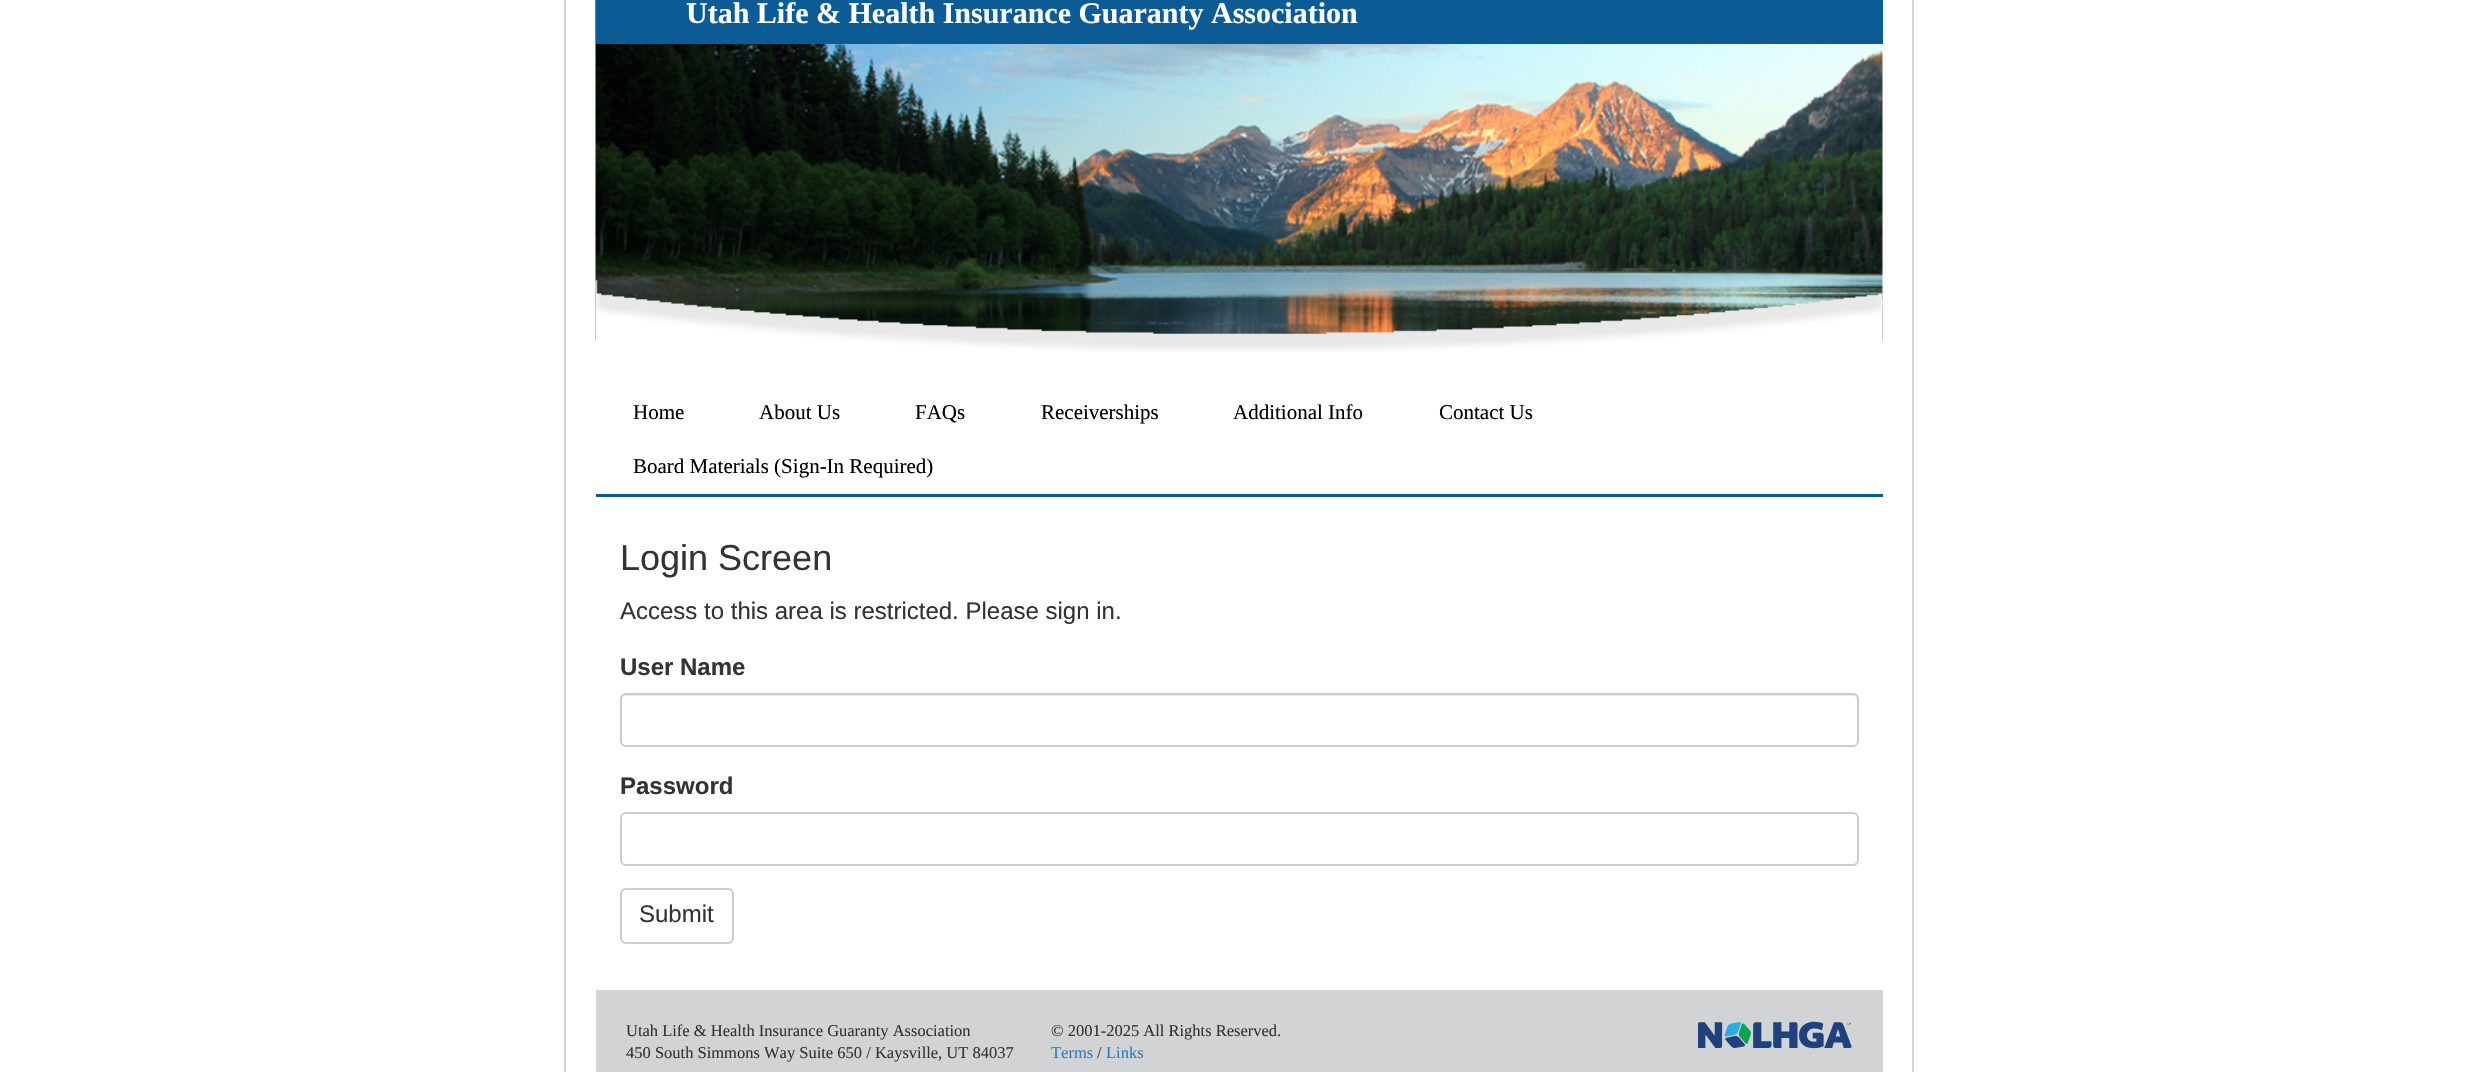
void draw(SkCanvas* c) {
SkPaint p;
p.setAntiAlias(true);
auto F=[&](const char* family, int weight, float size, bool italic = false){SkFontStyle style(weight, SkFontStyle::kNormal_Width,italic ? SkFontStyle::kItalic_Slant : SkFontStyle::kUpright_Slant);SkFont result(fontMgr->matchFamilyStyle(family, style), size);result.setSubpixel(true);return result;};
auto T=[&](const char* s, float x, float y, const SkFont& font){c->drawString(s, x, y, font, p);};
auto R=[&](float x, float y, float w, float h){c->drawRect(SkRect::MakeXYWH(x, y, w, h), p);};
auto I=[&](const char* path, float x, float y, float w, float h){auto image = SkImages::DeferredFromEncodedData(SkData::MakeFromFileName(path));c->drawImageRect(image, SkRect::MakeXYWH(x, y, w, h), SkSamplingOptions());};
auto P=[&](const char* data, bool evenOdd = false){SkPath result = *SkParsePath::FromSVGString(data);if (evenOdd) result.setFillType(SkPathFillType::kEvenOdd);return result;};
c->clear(0xffffffff);
p.setStroke(true);
p.setStrokeWidth(2);
p.setColor(0xffd2d3d5);
c->drawRect(SkRect::MakeXYWH(565,-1,1348,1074),p);
I("1.png",595,0,1288,341);
p.setStroke(false);
p.setColor(0xff0c5b95);
R(596,0,1287,44);
auto f1 = F("Liberation Serif",700,30);
p.setColor(0xffffffff);
T("Utah Life & Health Insurance Guaranty Association",686,23,f1);
I("2.png",595,280,1288,72);
p.setColor(0xff0c5b95);
R(596,494,1287,3);
auto f2 = F("Liberation Serif",400,21);
p.setColor(0xff000000);
T("Home",633,419,f2);
T("About Us",759,419,f2);
T("FAQs",915,419,f2);
T("Receiverships",1041,419,f2);
T("Additional Info",1233,419,f2);
T("Contact Us",1439,419,f2);
T("Board Materials (Sign-In Required)",633,473,f2);
auto f3 = F("Liberation Sans",400,36);
p.setColor(0xff333333);
T("Login Screen",620,570,f3);
auto f4 = F("Liberation Sans",400,24);
T("Access to this area is restricted. Please sign in.",620,619,f4);
auto f5 = F("Liberation Sans",700,24);
T("User Name",620,675,f5);
p.setColor(0xffececec);
c->drawPath(P("M626 696h1226c3 0 5 2 5 4c0-3-2-5-5-5h-1226c-3 0-5 2-5 5c0-2 2-4 5-4z"),p);
p.setStroke(true);
p.setColor(0xffcccccc);
c->drawRoundRect(SkRect::MakeXYWH(621,694,1237,52),5,5,p);
p.setStroke(false);
p.setColor(0xff333333);
T("Password",620,794,f5);
p.setColor(0xffececec);
c->drawPath(P("M626 814h1226c3 0 5 3 5 5c0-3-2-6-5-6h-1226c-3 0-5 3-5 6c0-2 2-5 5-5z"),p);
p.setStroke(true);
p.setColor(0xffcccccc);
c->drawRoundRect(SkRect::MakeXYWH(621,813,1237,52),5,5,p);
c->drawRoundRect(SkRect::MakeXYWH(621,889,112,54),5,5,p);
p.setStroke(false);
p.setColor(0xff333333);
T("Submit",639,922,f4);
p.setColor(0xffd2d3d5);
R(596,990,1287,82);
auto f6 = F("Liberation Serif",400,16.5);
p.setColor(0xff333333);
T("Utah Life & Health Insurance Guaranty Association",626,1036,f6);
T("450 South Simmons Way Suite 650 / Kaysville, UT 84037",626,1058,f6);
T("© 2001-2025 All Rights Reserved.",1051,1036,f6);
p.setColor(0xff337ab7);
T("Terms",1051,1058,f6);
p.setColor(0xff333333);
T("/",1097,1058,f6);
p.setColor(0xff337ab7);
T("Links",1106,1058,f6);
I("3.png",1698,1021,154,28);
}
